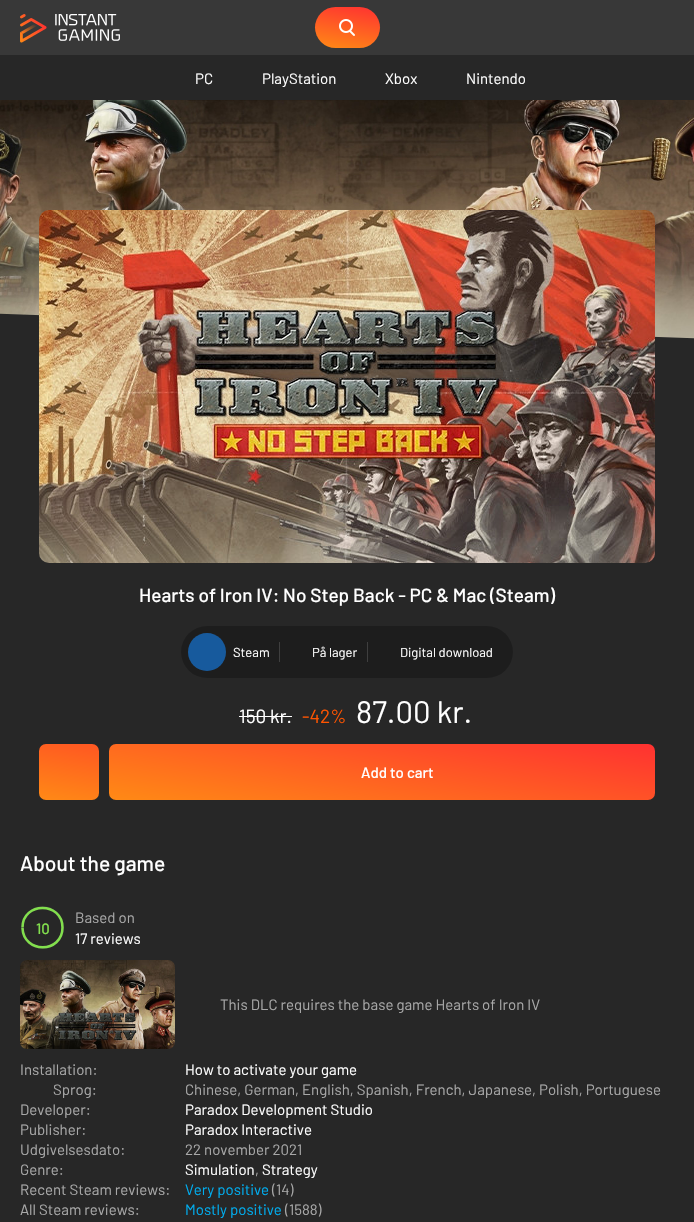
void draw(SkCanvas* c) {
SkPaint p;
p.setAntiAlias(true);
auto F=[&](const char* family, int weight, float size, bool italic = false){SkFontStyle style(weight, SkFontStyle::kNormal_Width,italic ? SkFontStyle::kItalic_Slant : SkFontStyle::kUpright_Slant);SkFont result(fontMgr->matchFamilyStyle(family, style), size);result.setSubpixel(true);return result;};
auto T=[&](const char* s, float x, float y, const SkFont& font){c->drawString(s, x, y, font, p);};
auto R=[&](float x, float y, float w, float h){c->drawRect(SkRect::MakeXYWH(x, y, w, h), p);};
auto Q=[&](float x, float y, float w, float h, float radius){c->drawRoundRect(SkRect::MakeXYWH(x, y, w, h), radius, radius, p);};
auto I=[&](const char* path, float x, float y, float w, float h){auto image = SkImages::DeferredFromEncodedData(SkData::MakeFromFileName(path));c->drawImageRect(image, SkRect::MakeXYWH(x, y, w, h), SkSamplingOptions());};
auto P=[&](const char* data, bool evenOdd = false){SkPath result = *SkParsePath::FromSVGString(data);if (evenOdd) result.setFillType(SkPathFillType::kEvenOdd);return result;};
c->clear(0xff272727);
p.setColor(0xff383838);
R(0,0,694,55);
I("1.png",20,14,100,29);
{
const SkColor colors[] = {0xffff8a15,0xffff3131};
const float stops[] = {0,1};
const SkPoint ends[] = {{343,53}, {352,2.1}};
p.setShader(SkGradientShader::MakeLinear(ends, colors, stops, 2, SkTileMode::kClamp));
p.setAlpha(255);
}
Q(315,7,65,41,20.5);
I("2.png",339,19,16,17);
auto f1 = F("Barlow",400,15);
p.setShader(nullptr);
p.setColor(0xffffffff);
T("PC",195,84,f1);
T("PlayStation",262,84,f1);
T("Xbox",385,84,f1);
T("Nintendo",466,84,f1);
I("3.png",0,100,694,239);
c->save();
c->clipRect(SkRect::MakeXYWH(0,55,694,300));
p.setColor(0xff272727);
c->drawPath(P("M-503 296l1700 60h-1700z"),p);
c->restore();
I("4.png",39,210,616,353);
auto f2 = F("Barlow",500,19);
p.setColor(0xffffffff);
T("Hearts of Iron IV: No Step Back - PC & Mac (Steam)",139,602,f2);
p.setColor(0xff1d1d1d);
Q(181,626,332,52,26);
p.setColor(0xff175a9d);
c->drawCircle(207,652,19,p);
auto f3 = F("Barlow",400,13);
p.setColor(0xffffffff);
T("Steam",233,657,f3);
p.setColor(0xff3f3f3f);
R(279,642,1,20);
p.setColor(0xffffffff);
T("På lager",312,657,f3);
p.setColor(0xff3f3f3f);
R(367,642,1,20);
p.setColor(0xffffffff);
T("Digital download",400,657,f3);
auto f4 = F("Barlow",400,19);
T("150 kr.",239,723,f4);
R(239,716,53,1);
p.setColor(0xffff5400);
T("-42%",302,723,f4);
auto f5 = F("Barlow",400,31);
p.setColor(0xffffffff);
T("87.00 kr.",356,723,f5);
{
const SkColor colors[] = {0xffff8916,0xffff5722};
const float stops[] = {0,1};
const SkPoint ends[] = {{63,804}, {75,740}};
p.setShader(SkGradientShader::MakeLinear(ends, colors, stops, 2, SkTileMode::kClamp));
p.setAlpha(255);
}
Q(39,744,60,56,7);
{
const SkColor colors[] = {0xffff8a15,0xffff3131};
const float stops[] = {0,1};
const SkPoint ends[] = {{369,846}, {395,698}};
p.setShader(SkGradientShader::MakeLinear(ends, colors, stops, 2, SkTileMode::kClamp));
p.setAlpha(255);
}
Q(109,744,546,56,7);
auto f6 = F("Barlow",500,15);
p.setShader(nullptr);
p.setColor(0xffffffff);
T("Add to cart",361,778,f6);
auto f7 = F("Barlow",500,21);
T("About the game",20,871,f7);
p.setStroke(true);
p.setStrokeWidth(2.5);
p.setColor(0xff3d3d3d);
c->drawCircle(42.5,927.5,20,p);
p.setColor(0xff82df4d);
c->drawPath(P("M22.5 927.5c0-26 40-26 40 0c0 26-39 26.5-40 .5"),p);
p.setStroke(false);
T("10",36,934,f6);
p.setColor(0xffa8a8a8);
T("Based on",75,923,f1);
p.setColor(0xffffffff);
T("17 reviews",75,944,f1);
I("5.png",20,960,155,89);
p.setColor(0xffa8a8a8);
T("This DLC requires the base game Hearts of Iron IV",220,1010,f1);
T("Installation:",20,1075,f1);
p.setColor(0xffffffff);
T("How to activate your game",185,1075,f1);
p.setColor(0xffa8a8a8);
T("Sprog:",53,1095,f1);
T("Chinese, German, English, Spanish, French, Japanese, Polish, Portuguese",185,1095,f1);
T("Developer:",20,1115,f1);
p.setColor(0xffffffff);
T("Paradox Development Studio",185,1115,f1);
p.setColor(0xffa8a8a8);
T("Publisher:",20,1135,f1);
p.setColor(0xffffffff);
T("Paradox Interactive",185,1135,f1);
p.setColor(0xffa8a8a8);
T("Udgivelsesdato:",20,1155,f1);
T("22 november 2021",185,1155,f1);
T("Genre:",20,1175,f1);
p.setColor(0xffffffff);
T("Simulation",185,1175,f1);
p.setColor(0xffa8a8a8);
T(",",255,1175,f1);
p.setColor(0xffffffff);
T("Strategy",262,1175,f1);
p.setColor(0xffa8a8a8);
T("Recent Steam reviews:",20,1195,f1);
p.setColor(0xff00adef);
T("Very positive",185,1195,f1);
p.setColor(0xffa8a8a8);
T("(14)",272,1195,f1);
T("All Steam reviews:",20,1215,f1);
p.setColor(0xff00adef);
T("Mostly positive",185,1215,f1);
p.setColor(0xffa8a8a8);
T("(1588)",285,1215,f1);
}
